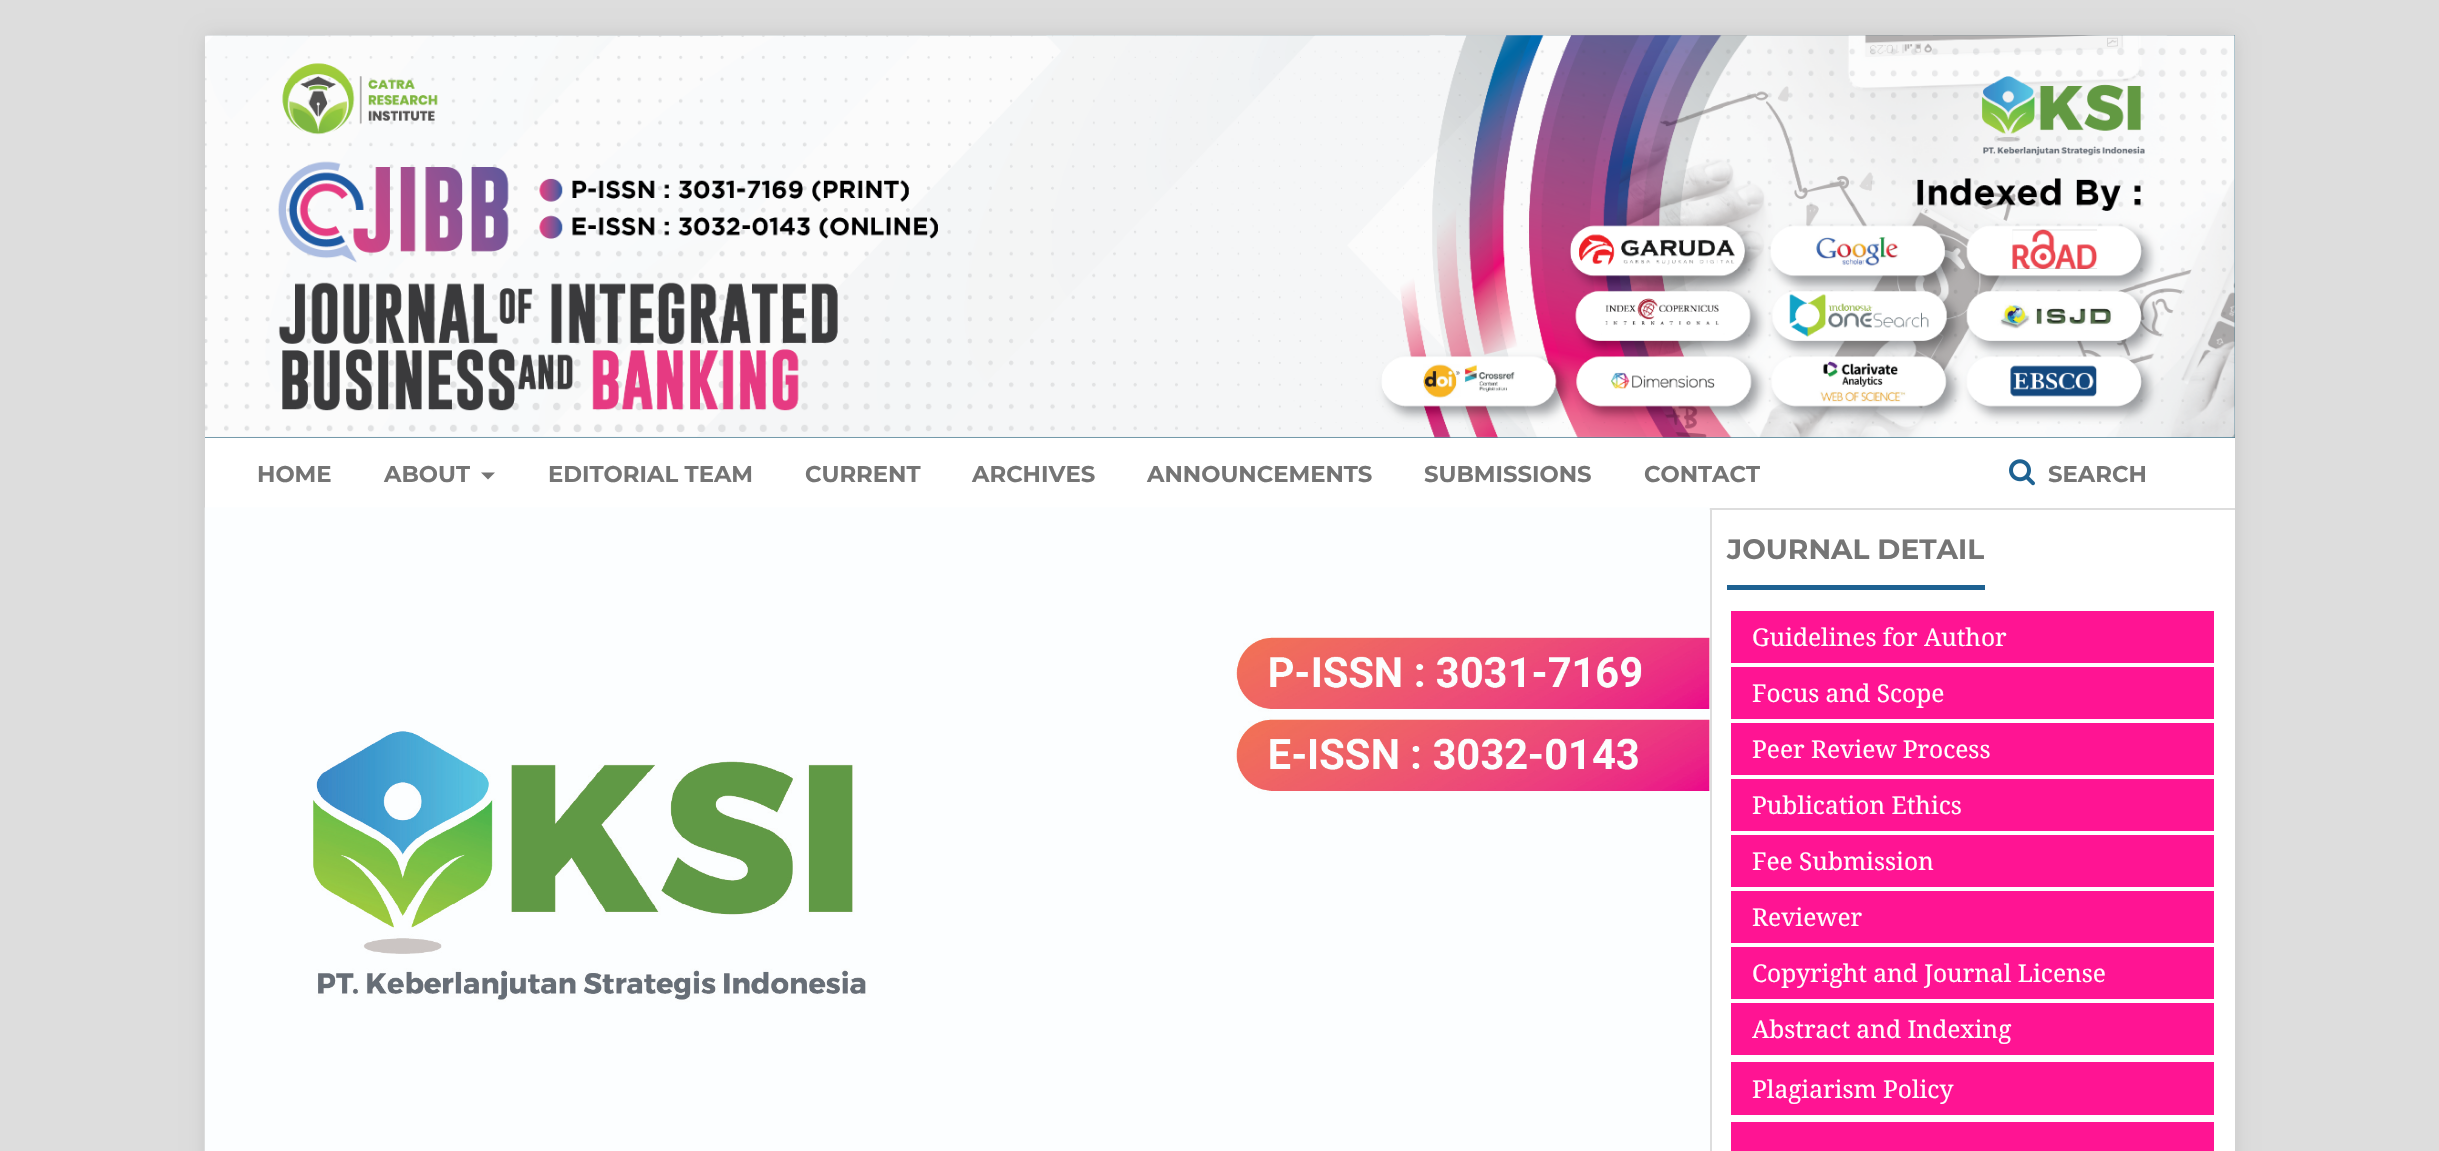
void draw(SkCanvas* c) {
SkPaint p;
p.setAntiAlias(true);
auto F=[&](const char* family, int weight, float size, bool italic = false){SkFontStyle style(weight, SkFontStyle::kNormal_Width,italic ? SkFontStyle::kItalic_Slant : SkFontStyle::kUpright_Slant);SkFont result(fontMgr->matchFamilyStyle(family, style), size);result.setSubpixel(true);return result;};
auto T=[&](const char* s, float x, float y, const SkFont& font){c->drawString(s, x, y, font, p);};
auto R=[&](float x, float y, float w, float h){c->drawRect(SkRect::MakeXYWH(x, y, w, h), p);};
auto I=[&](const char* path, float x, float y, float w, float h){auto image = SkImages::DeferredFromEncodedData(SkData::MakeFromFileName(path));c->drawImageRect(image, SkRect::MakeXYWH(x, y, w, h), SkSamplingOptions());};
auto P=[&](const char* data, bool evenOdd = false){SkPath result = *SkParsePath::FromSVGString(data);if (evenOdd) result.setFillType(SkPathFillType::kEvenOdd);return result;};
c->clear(0xffdddddd);
p.setColor(0x1a000000);
p.setMaskFilter(SkMaskFilter::MakeBlur(kNormal_SkBlurStyle, 9));
c->drawRect(SkRect::MakeXYWH(205,35,2030,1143),p);
p.setMaskFilter(nullptr);
p.setColor(0xffffffff);
R(1709,510,526,641);
p.setColor(0xff4b7d92);
R(205,35,2030,403);
p.setColor(0xffdddddd);
R(1709,508,526,2);
I("1.png",205,35,2030,403);
p.setColor(0xffffffff);
R(205,438,2030,70);
auto f1 = F("Montserrat",700,22.75);
p.setColor(0xff757575);
T("HOME",257,482,f1);
T("ABOUT",384,482,f1);
c->drawPath(P("M481 472.5h14l-7 7z"),p);
T("EDITORIAL TEAM",548,482,f1);
T("CURRENT",805,482,f1);
T("ARCHIVES",972,482,f1);
T("ANNOUNCEMENTS",1147,482,f1);
T("SUBMISSIONS",1424,482,f1);
T("CONTACT",1644,482,f1);
I("2.png",2009,459,26,27);
T("SEARCH",2048,482,f1);
I("3.png",204,507,1506,644);
p.setColor(0xffdddddd);
R(1710,509,2,642);
p.setColor(0xff1e6292);
R(1727,585,258,5);
auto f2 = F("Montserrat",700,28);
p.setColor(0xff757575);
T("JOURNAL DETAIL",1727,559,f2);
p.setColor(0xffff1493);
R(1731,611,483,52);
auto f3 = F("Noto Serif",400,24.5);
p.setColor(0xffffffff);
T("Guidelines for Author",1752,646,f3);
p.setColor(0xffff1493);
R(1731,667,483,52);
p.setColor(0xffffffff);
T("Focus and Scope",1752,702,f3);
p.setColor(0xffff1493);
R(1731,723,483,52);
p.setColor(0xffffffff);
T("Peer Review Process",1752,758,f3);
p.setColor(0xffff1493);
R(1731,779,483,52);
p.setColor(0xffffffff);
T("Publication Ethics",1752,814,f3);
p.setColor(0xffff1493);
R(1731,835,483,52);
p.setColor(0xffffffff);
T("Fee Submission",1752,870,f3);
p.setColor(0xffff1493);
R(1731,891,483,52);
p.setColor(0xffffffff);
T("Reviewer",1752,926,f3);
p.setColor(0xffff1493);
R(1731,947,483,52);
p.setColor(0xffffffff);
T("Copyright and Journal License",1752,982,f3);
p.setColor(0xffff1493);
R(1731,1003,483,52);
p.setColor(0xffffffff);
T("Abstract and Indexing",1752,1038,f3);
p.setColor(0xffff1493);
R(1731,1062,483,53);
p.setColor(0xffffffff);
T("Plagiarism Policy",1752,1098,f3);
p.setColor(0xffff1493);
R(1731,1122,483,29);
}
